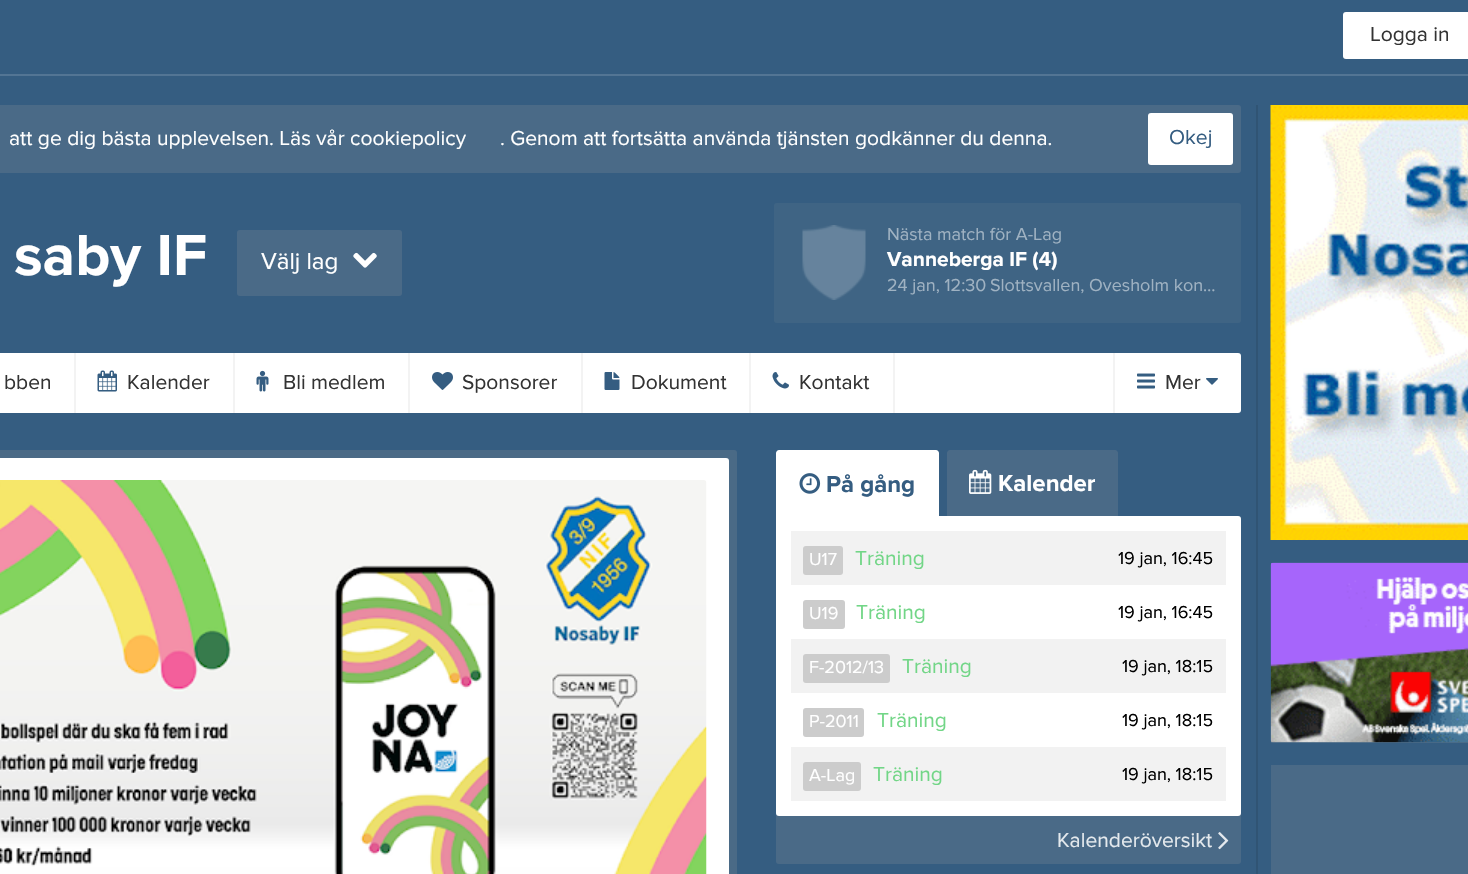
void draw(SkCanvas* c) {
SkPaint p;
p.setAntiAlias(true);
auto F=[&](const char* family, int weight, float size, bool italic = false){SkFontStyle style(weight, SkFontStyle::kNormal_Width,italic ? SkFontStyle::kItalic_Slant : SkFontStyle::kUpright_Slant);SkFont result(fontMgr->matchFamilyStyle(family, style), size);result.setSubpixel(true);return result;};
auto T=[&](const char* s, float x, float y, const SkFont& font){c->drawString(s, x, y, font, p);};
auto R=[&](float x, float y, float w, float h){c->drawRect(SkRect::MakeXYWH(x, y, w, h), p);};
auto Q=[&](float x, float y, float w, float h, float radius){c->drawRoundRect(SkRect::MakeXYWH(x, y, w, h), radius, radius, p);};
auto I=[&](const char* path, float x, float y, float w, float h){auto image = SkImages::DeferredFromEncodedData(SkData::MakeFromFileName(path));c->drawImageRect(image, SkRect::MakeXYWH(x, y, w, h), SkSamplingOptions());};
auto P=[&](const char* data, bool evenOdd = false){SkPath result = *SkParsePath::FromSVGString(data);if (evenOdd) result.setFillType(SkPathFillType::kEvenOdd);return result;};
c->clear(0xff355d81);
p.setColor(0xff537594);
R(0,74,1468,2);
p.setColor(0xffffffff);
Q(1343,12,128,47,3);
auto f1 = F("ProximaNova",400,21);
p.setColor(0xff333333);
T("Logga in",1370,41,f1);
p.setColor(0xff4a6a87);
Q(-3,105,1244,68,3);
p.setColor(0xffffffff);
T("att ge dig bästa upplevelsen. Läs vår cookiepolicy",9,145,f1);
T(". Genom att fortsätta använda tjänsten godkänner du denna.",500,145,f1);
Q(1148,113,85,52,3);
p.setColor(0xff355d81);
T("Okej",1169,144,f1);
auto f2 = F("ProximaNova",700,60);
p.setColor(0xffffffff);
T("saby IF",14,275,f2);
p.setColor(0xff4a6a87);
Q(237,230,165,66,3);
auto f3 = F("ProximaNova",400,24);
p.setColor(0xffffffff);
T("Välj lag",261,269,f3);
I("1.png",353,252,24,16);
p.setColor(0xff3f6484);
Q(774,203,467,120,3);
I("2.png",802,225,64,75);
auto f4 = F("ProximaNova",400,18);
p.setColor(0xff9fb2c2);
T("Nästa match för A-Lag",887,240,f4);
auto f5 = F("ProximaNova",700,21);
p.setColor(0xffffffff);
T("Vanneberga IF (4)",887,266,f5);
p.setColor(0xff9fb2c2);
T("24 jan, 12:30",887,291,f4);
T("Slottsvallen, Ovesholm kon…",990,291,f4);
p.setColor(0xffffffff);
Q(-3,353,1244,60,3);
p.setColor(0xfff3f3f3);
R(74,353,2,60);
p.setColor(0xff333333);
T("bben",4,389,f1);
p.setColor(0xfff3f3f3);
R(233,353,2,60);
I("3.png",97,370,20,22);
p.setColor(0xff333333);
T("Kalender",127,389,f1);
p.setColor(0xfff3f3f3);
R(408,353,2,60);
I("4.png",256,370,13,22);
p.setColor(0xff333333);
T("Bli medlem",283,389,f1);
p.setColor(0xfff3f3f3);
R(581,353,2,60);
I("5.png",432,372,21,18);
p.setColor(0xff333333);
T("Sponsorer",462,389,f1);
p.setColor(0xfff3f3f3);
R(749,353,2,60);
I("6.png",604,372,16,18);
p.setColor(0xff333333);
T("Dokument",631,389,f1);
p.setColor(0xfff3f3f3);
R(893,353,2,60);
I("7.png",772,372,17,17);
p.setColor(0xff333333);
T("Kontakt",799,389,f1);
p.setColor(0xfff3f3f3);
R(1113,353,2,60);
I("8.png",1137,373,18,16);
p.setColor(0xff333333);
T("Mer",1165,389,f1);
I("9.png",1206,378,12,7);
p.setColor(0xff4a6a86);
Q(-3,450,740,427,3);
p.setColor(0xffffffff);
Q(-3,458,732,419,3);
I("10.png",0,480,707,394);
c->drawPath(P("M779 450h157c1.5 0 3 1.5 3 3v63h-163v-63c0-1.5 1.5-3 3-3z"),p);
I("11.png",799,473,22,21);
auto f6 = F("ProximaNova",700,24);
p.setColor(0xff355d81);
T("På gång",826,492,f6);
p.setColor(0xff4a6a87);
Q(776,516,465,348,3);
p.setColor(0xffffffff);
Q(776,516,465,300,3);
R(776,516,3,3);
p.setColor(0xff4a6a87);
c->drawPath(P("M950 450h165c1.5 0 3 1.5 3 3v63h-171v-63c0-1.5 1.5-3 3-3z"),p);
I("12.png",969,469,23,25);
p.setColor(0xffffffff);
T("Kalender",998,491,f6);
p.setColor(0xfff2f2f2);
R(791,531,435,54);
p.setColor(0xffcccccc);
Q(803,546,40,29,3);
p.setColor(0xffffffff);
T("U17",809,565,f4);
p.setColor(0xff72d687);
T("Träning",855,565,f1);
p.setColor(0xff000000);
T("19 jan, 16:45",1118,564,f4);
p.setColor(0xffcccccc);
Q(803,600,42,29,3);
p.setColor(0xffffffff);
T("U19",809,619,f4);
p.setColor(0xff72d687);
T("Träning",856,619,f1);
p.setColor(0xff000000);
T("19 jan, 16:45",1118,618,f4);
p.setColor(0xfff2f2f2);
R(791,639,435,54);
p.setColor(0xffcccccc);
Q(803,654,87,29,3);
p.setColor(0xffffffff);
T("F-2012/13",809,673,f4);
p.setColor(0xff72d687);
T("Träning",902,673,f1);
p.setColor(0xff000000);
T("19 jan, 18:15",1122,672,f4);
p.setColor(0xffcccccc);
Q(803,708,61,29,3);
p.setColor(0xffffffff);
T("P-2011",809,727,f4);
p.setColor(0xff72d687);
T("Träning",877,727,f1);
p.setColor(0xff000000);
T("19 jan, 18:15",1122,726,f4);
p.setColor(0xfff2f2f2);
R(791,747,435,54);
p.setColor(0xffcccccc);
Q(803,762,58,29,3);
p.setColor(0xffffffff);
T("A-Lag",809,781,f4);
p.setColor(0xff72d687);
T("Träning",873,781,f1);
p.setColor(0xff000000);
T("19 jan, 18:15",1122,780,f4);
p.setColor(0xffe4e9ed);
T("Kalenderöversikt",1057,847,f1);
I("13.png",1218,832,11,18);
p.setColor(0xff305474);
R(1256,105,2,769);
I("14.png",1270,105,198,435);
p.setColor(0xff4a6a87);
R(1271,563,197,180);
I("15.png",1270,562,198,181);
R(1271,765,197,109);
}
